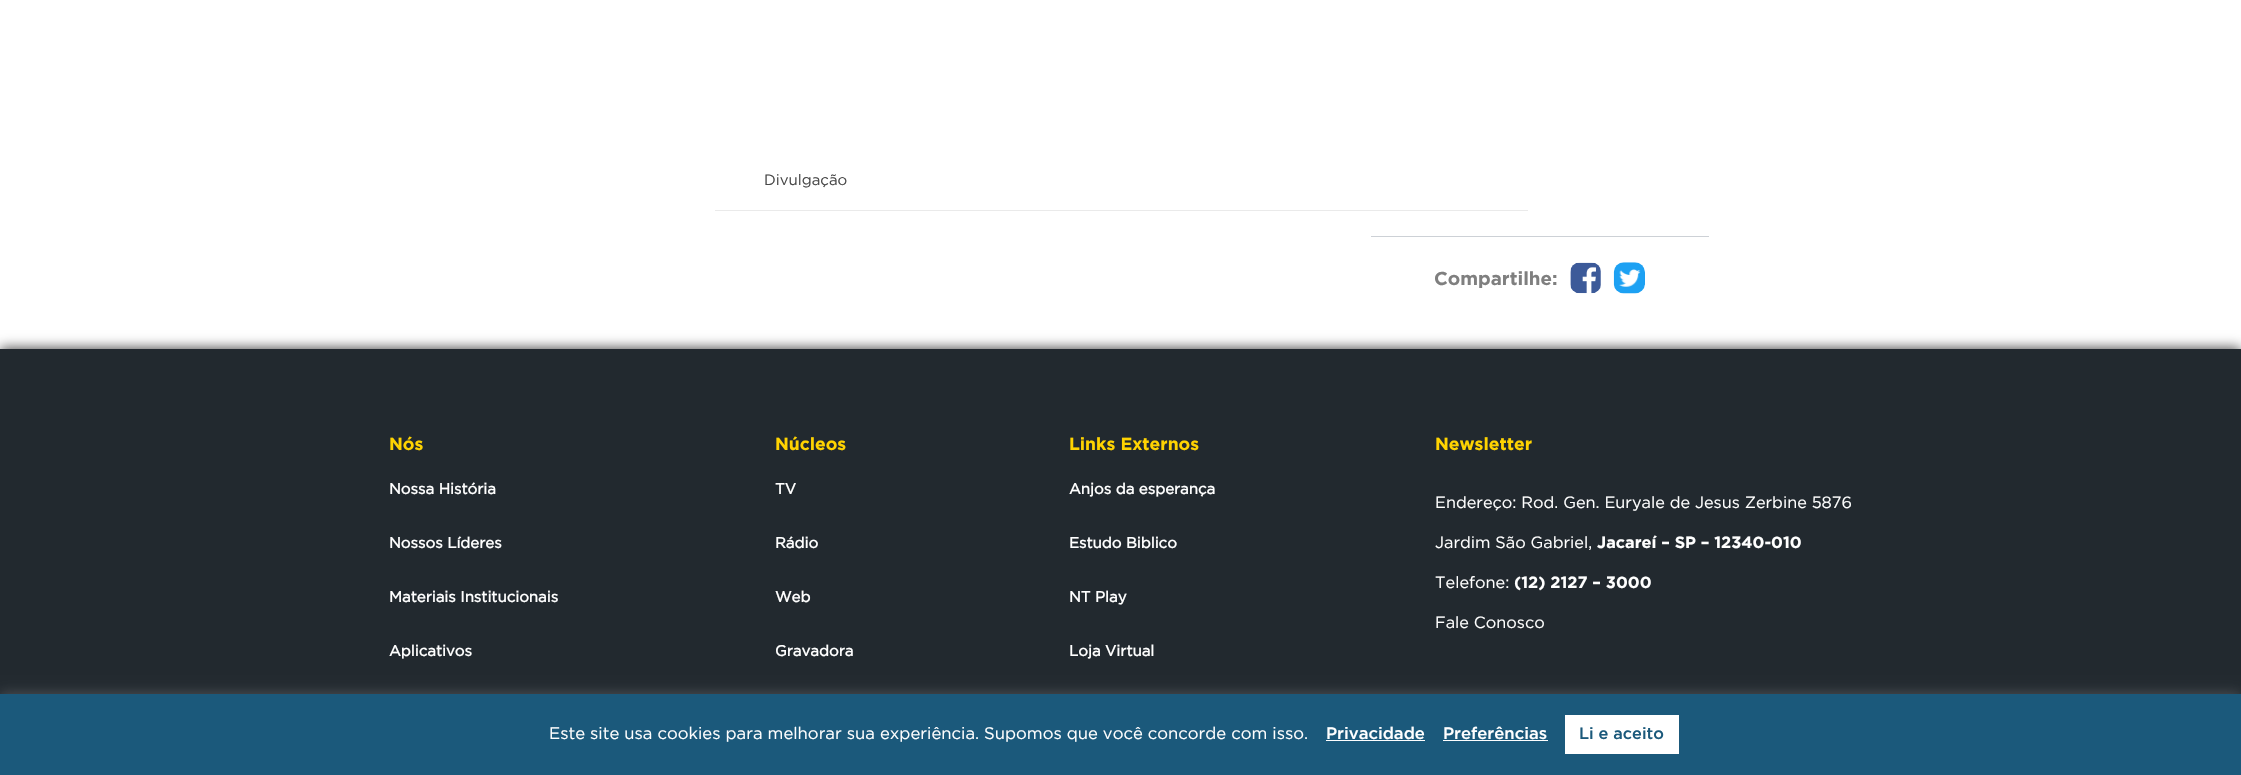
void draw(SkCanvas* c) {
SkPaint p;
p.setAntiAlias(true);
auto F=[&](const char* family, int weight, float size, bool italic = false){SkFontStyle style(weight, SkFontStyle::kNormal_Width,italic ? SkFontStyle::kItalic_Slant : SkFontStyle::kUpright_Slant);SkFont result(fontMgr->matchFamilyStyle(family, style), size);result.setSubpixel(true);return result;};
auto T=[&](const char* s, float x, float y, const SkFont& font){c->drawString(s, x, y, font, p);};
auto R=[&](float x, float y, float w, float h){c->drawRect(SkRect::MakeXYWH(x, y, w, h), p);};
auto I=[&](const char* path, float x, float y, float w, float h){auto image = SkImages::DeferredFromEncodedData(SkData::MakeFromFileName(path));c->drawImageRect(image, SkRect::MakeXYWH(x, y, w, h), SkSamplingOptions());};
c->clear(0xffffffff);
p.setColor(0xffeaeaea);
R(715,210,813,1);
auto f1 = F("Gotham",400,15);
p.setColor(0xff484848);
T("Divulgação",764,185,f1);
p.setColor(0xffcdd1d6);
R(1371,236,338,1);
auto f2 = F("Gotham",700,18.75);
p.setColor(0xff7f7f7f);
T("Compartilhe:",1434,285,f2);
I("1.png",1570,262,31,32);
I("2.png",1613,262,32,32);
p.setColor(0xff484848);
p.setMaskFilter(SkMaskFilter::MakeBlur(kNormal_SkBlurStyle, 6));
c->drawRect(SkRect::MakeXYWH(0,348,2241,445),p);
p.setMaskFilter(nullptr);
p.setColor(0xff22292f);
R(0,349,2241,345);
auto f3 = F("Gotham",700,17.5);
p.setColor(0xffffd301);
T("Nós",389,450,f3);
auto f4 = F("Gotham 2",700,15);
p.setColor(0xffffffff);
T("Nossa História",389,494,f4);
T("Nossos Líderes",389,548,f4);
T("Materiais Institucionais",389,602,f4);
T("Aplicativos",389,656,f4);
p.setColor(0xffffd301);
T("Núcleos",775,450,f3);
p.setColor(0xffffffff);
T("TV",775,494,f4);
T("Rádio",775,548,f4);
T("Web",775,602,f4);
T("Gravadora",775,656,f4);
p.setColor(0xffffd301);
T("Links Externos",1069,450,f3);
p.setColor(0xffffffff);
T("Anjos da esperança",1069,494,f4);
T("Estudo Biblico",1069,548,f4);
T("NT Play",1069,602,f4);
T("Loja Virtual",1069,656,f4);
p.setColor(0xffffd301);
T("Newsletter",1435,450,f3);
auto f5 = F("Gotham",400,16.25);
p.setColor(0xffffffff);
T("Endereço: Rod. Gen. Euryale de Jesus Zerbine 5876",1435,508,f5);
T("Jardim São Gabriel,",1435,548,f5);
auto f6 = F("Gotham",700,16.25);
T("Jacareí – SP – 12340-010",1597,548,f6);
T("Telefone:",1435,588,f5);
T("(12) 2127 – 3000",1514,588,f6);
T("Fale Conosco",1435,628,f5);
p.setColor(0x4dacabab);
p.setMaskFilter(SkMaskFilter::MakeBlur(kNormal_SkBlurStyle, 6));
c->drawRect(SkRect::MakeXYWH(0,693,2241,81),p);
p.setMaskFilter(nullptr);
p.setColor(0xff1b597b);
R(0,694,2241,81);
auto f7 = F("Gotham",400,16.65);
p.setColor(0xffffffff);
T("Este site usa cookies para melhorar sua experiência. Supomos que você concorde com isso.",549,739,f7);
auto f8 = F("Gotham",500,16.65);
T("Privacidade",1326,739,f8);
R(1326,740,99,1);
T("Preferências",1443,739,f8);
R(1443,740,105,1);
R(1565,715,114,39);
auto f9 = F("Gotham",500,16.25);
p.setColor(0xff1b597b);
T("Li e aceito",1579,739,f9);
}
